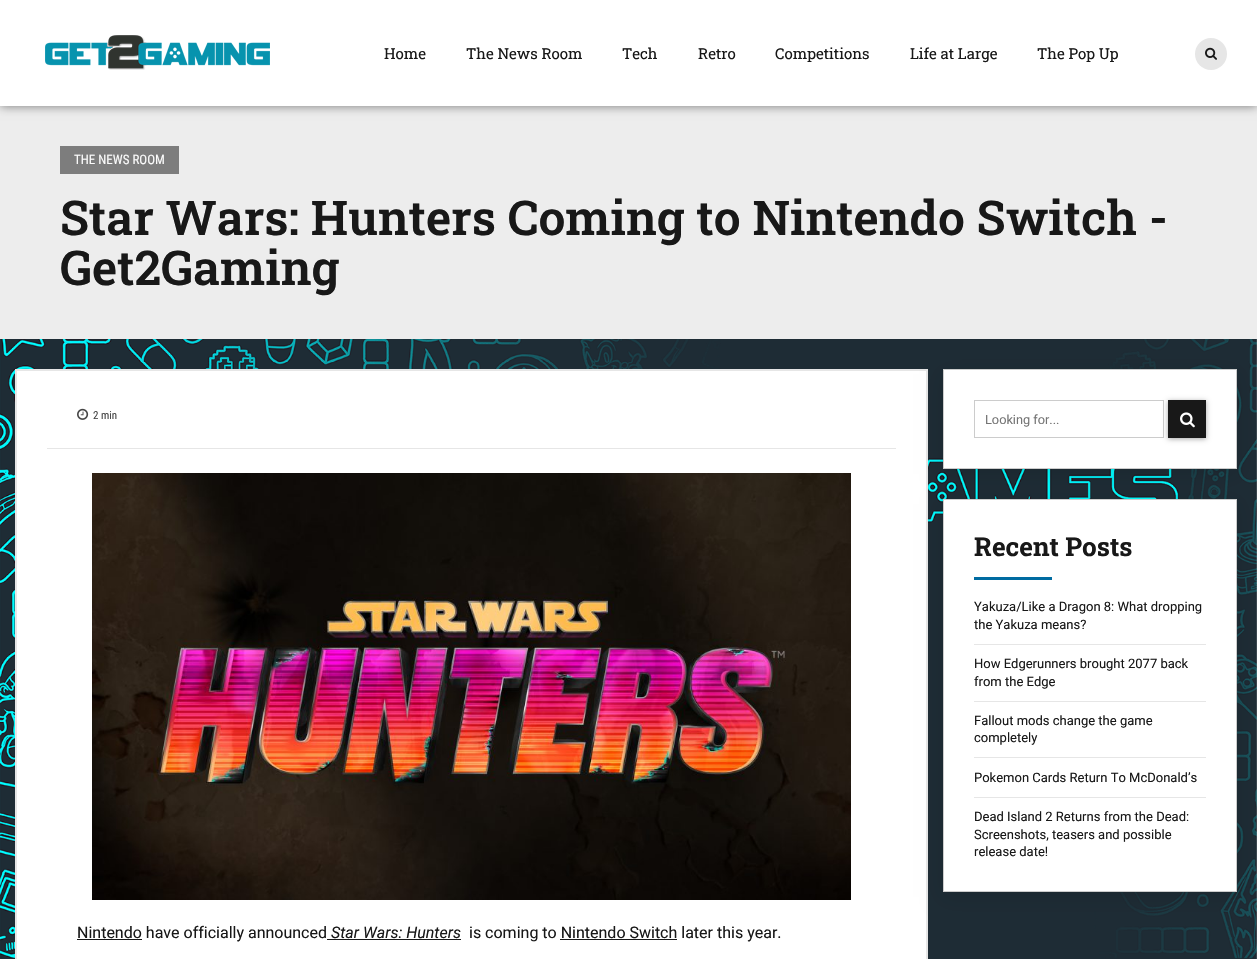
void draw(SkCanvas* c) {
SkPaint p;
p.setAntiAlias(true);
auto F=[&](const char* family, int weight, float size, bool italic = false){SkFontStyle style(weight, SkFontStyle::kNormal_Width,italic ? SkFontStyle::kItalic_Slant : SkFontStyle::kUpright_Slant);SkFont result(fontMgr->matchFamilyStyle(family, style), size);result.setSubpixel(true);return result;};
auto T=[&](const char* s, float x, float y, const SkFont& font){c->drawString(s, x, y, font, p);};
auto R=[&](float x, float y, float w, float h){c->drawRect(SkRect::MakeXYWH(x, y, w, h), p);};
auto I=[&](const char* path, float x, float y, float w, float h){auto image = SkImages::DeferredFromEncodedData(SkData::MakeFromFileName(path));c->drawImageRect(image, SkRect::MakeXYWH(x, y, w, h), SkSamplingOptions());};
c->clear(0xffffffff);
I("1.png",0,339,1257,620);
p.setColor(0xffededed);
R(0,106,1257,233);
p.setColor(0x80000000);
p.setMaskFilter(SkMaskFilter::MakeBlur(kNormal_SkBlurStyle, 5));
c->drawRect(SkRect::MakeXYWH(0,0,1257,106),p);
p.setMaskFilter(nullptr);
p.setColor(0xffffffff);
R(0,0,1257,106);
I("2.png",45,35,225,35);
auto f1 = F("Roboto Slab",400,15);
p.setColor(0xff181818);
T("Home",384,59,f1);
T("The News Room",466,59,f1);
T("Tech",622,59,f1);
T("Retro",698,59,f1);
T("Competitions",775,59,f1);
T("Life at Large",910,59,f1);
T("The Pop Up",1037,59,f1);
p.setColor(0xffe6e6e6);
c->drawCircle(1211,54,16,p);
I("3.png",1205,47,12,13);
p.setColor(0xff7d7d7d);
R(60,146,119,28);
auto f2 = F("Roboto Condensed",400,13);
p.setColor(0xfffbfbfb);
T("THE NEWS ROOM",74,164,f2);
auto f3 = F("Roboto Slab",600,48);
p.setColor(0xff181818);
T("Star Wars: Hunters Coming to Nintendo Switch -",60,235,f3);
T("Get2Gaming",60,285,f3);
p.setColor(0xffffffff);
c->drawRect(SkRect::MakeXYWH(16,370,911,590),p);
p.setStroke(true);
p.setStrokeWidth(2);
p.setColor(0xffe6e6e6);
c->drawRect(SkRect::MakeXYWH(16,370,911,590),p);
p.setStroke(false);
R(47,448,849,1);
I("4.png",77,408,12,12);
auto f4 = F("Roboto Condensed",400,11);
p.setColor(0xff464646);
T("2",93,419,f4);
T("min",101,419,f4);
I("5.png",92,473,759,427);
p.setColor(0xff181818);
R(77,939,65,1);
auto f5 = F("Roboto",400,16);
T("Nintendo have officially announced",77,938,f5);
auto f6 = F("Roboto",400,16,true);
T("Star Wars: Hunters",331,938,f6);
R(327,939,134,1);
T("is coming to Nintendo Switch later this year.",469,938,f5);
R(560,939,117,1);
p.setColor(0x1a000000);
p.setMaskFilter(SkMaskFilter::MakeBlur(kNormal_SkBlurStyle, 10));
c->drawRect(SkRect::MakeXYWH(943,374,294,100),p);
p.setMaskFilter(nullptr);
p.setColor(0xffffffff);
c->drawRect(SkRect::MakeXYWH(943.5,369.5,293,99),p);
p.setStroke(true);
p.setStrokeWidth(1);
p.setColor(0xffcccccc);
c->drawRect(SkRect::MakeXYWH(943.5,369.5,293,99),p);
c->drawRect(SkRect::MakeXYWH(974.5,400.5,189,37),p);
auto f7 = F("Roboto",400,12.75);
p.setStroke(false);
p.setColor(0xff757575);
T("Looking for...",985,424,f7);
p.setColor(0x59000000);
p.setMaskFilter(SkMaskFilter::MakeBlur(kNormal_SkBlurStyle, 2.5));
c->drawRect(SkRect::MakeXYWH(1168,401,38,38),p);
p.setMaskFilter(nullptr);
p.setColor(0xff181818);
R(1168,400,38,38);
I("6.png",1180,412,15,16);
p.setColor(0x1a000000);
p.setMaskFilter(SkMaskFilter::MakeBlur(kNormal_SkBlurStyle, 10));
c->drawRect(SkRect::MakeXYWH(943,504,294,393),p);
p.setMaskFilter(nullptr);
p.setColor(0xffffffff);
c->drawRect(SkRect::MakeXYWH(943.5,499.5,293,392),p);
p.setStroke(true);
p.setColor(0xffcccccc);
c->drawRect(SkRect::MakeXYWH(943.5,499.5,293,392),p);
auto f8 = F("Roboto Slab",700,26);
p.setStroke(false);
p.setColor(0xff181818);
T("Recent Posts",974,556,f8);
p.setColor(0xff006ba1);
R(974,577,78,3);
p.setColor(0xffe6e6e6);
R(974,644,232,1);
auto f9 = F("Roboto",400,13);
p.setColor(0xff181818);
T("Yakuza/Like a Dragon 8: What dropping",974,611,f9);
T("the Yakuza means?",974,629,f9);
p.setColor(0xffe6e6e6);
R(974,701,232,1);
p.setColor(0xff181818);
T("How Edgerunners brought 2077 back",974,668,f9);
T("from the Edge",974,686,f9);
p.setColor(0xffe6e6e6);
R(974,757,232,1);
p.setColor(0xff181818);
T("Fallout mods change the game",974,725,f9);
T("completely",974,742,f9);
p.setColor(0xffe6e6e6);
R(974,797,232,1);
p.setColor(0xff181818);
T("Pokemon Cards Return To McDonald’s",974,782,f9);
T("Dead Island 2 Returns from the Dead:",974,821,f9);
T("Screenshots, teasers and possible",974,839,f9);
T("release date!",974,856,f9);
}
